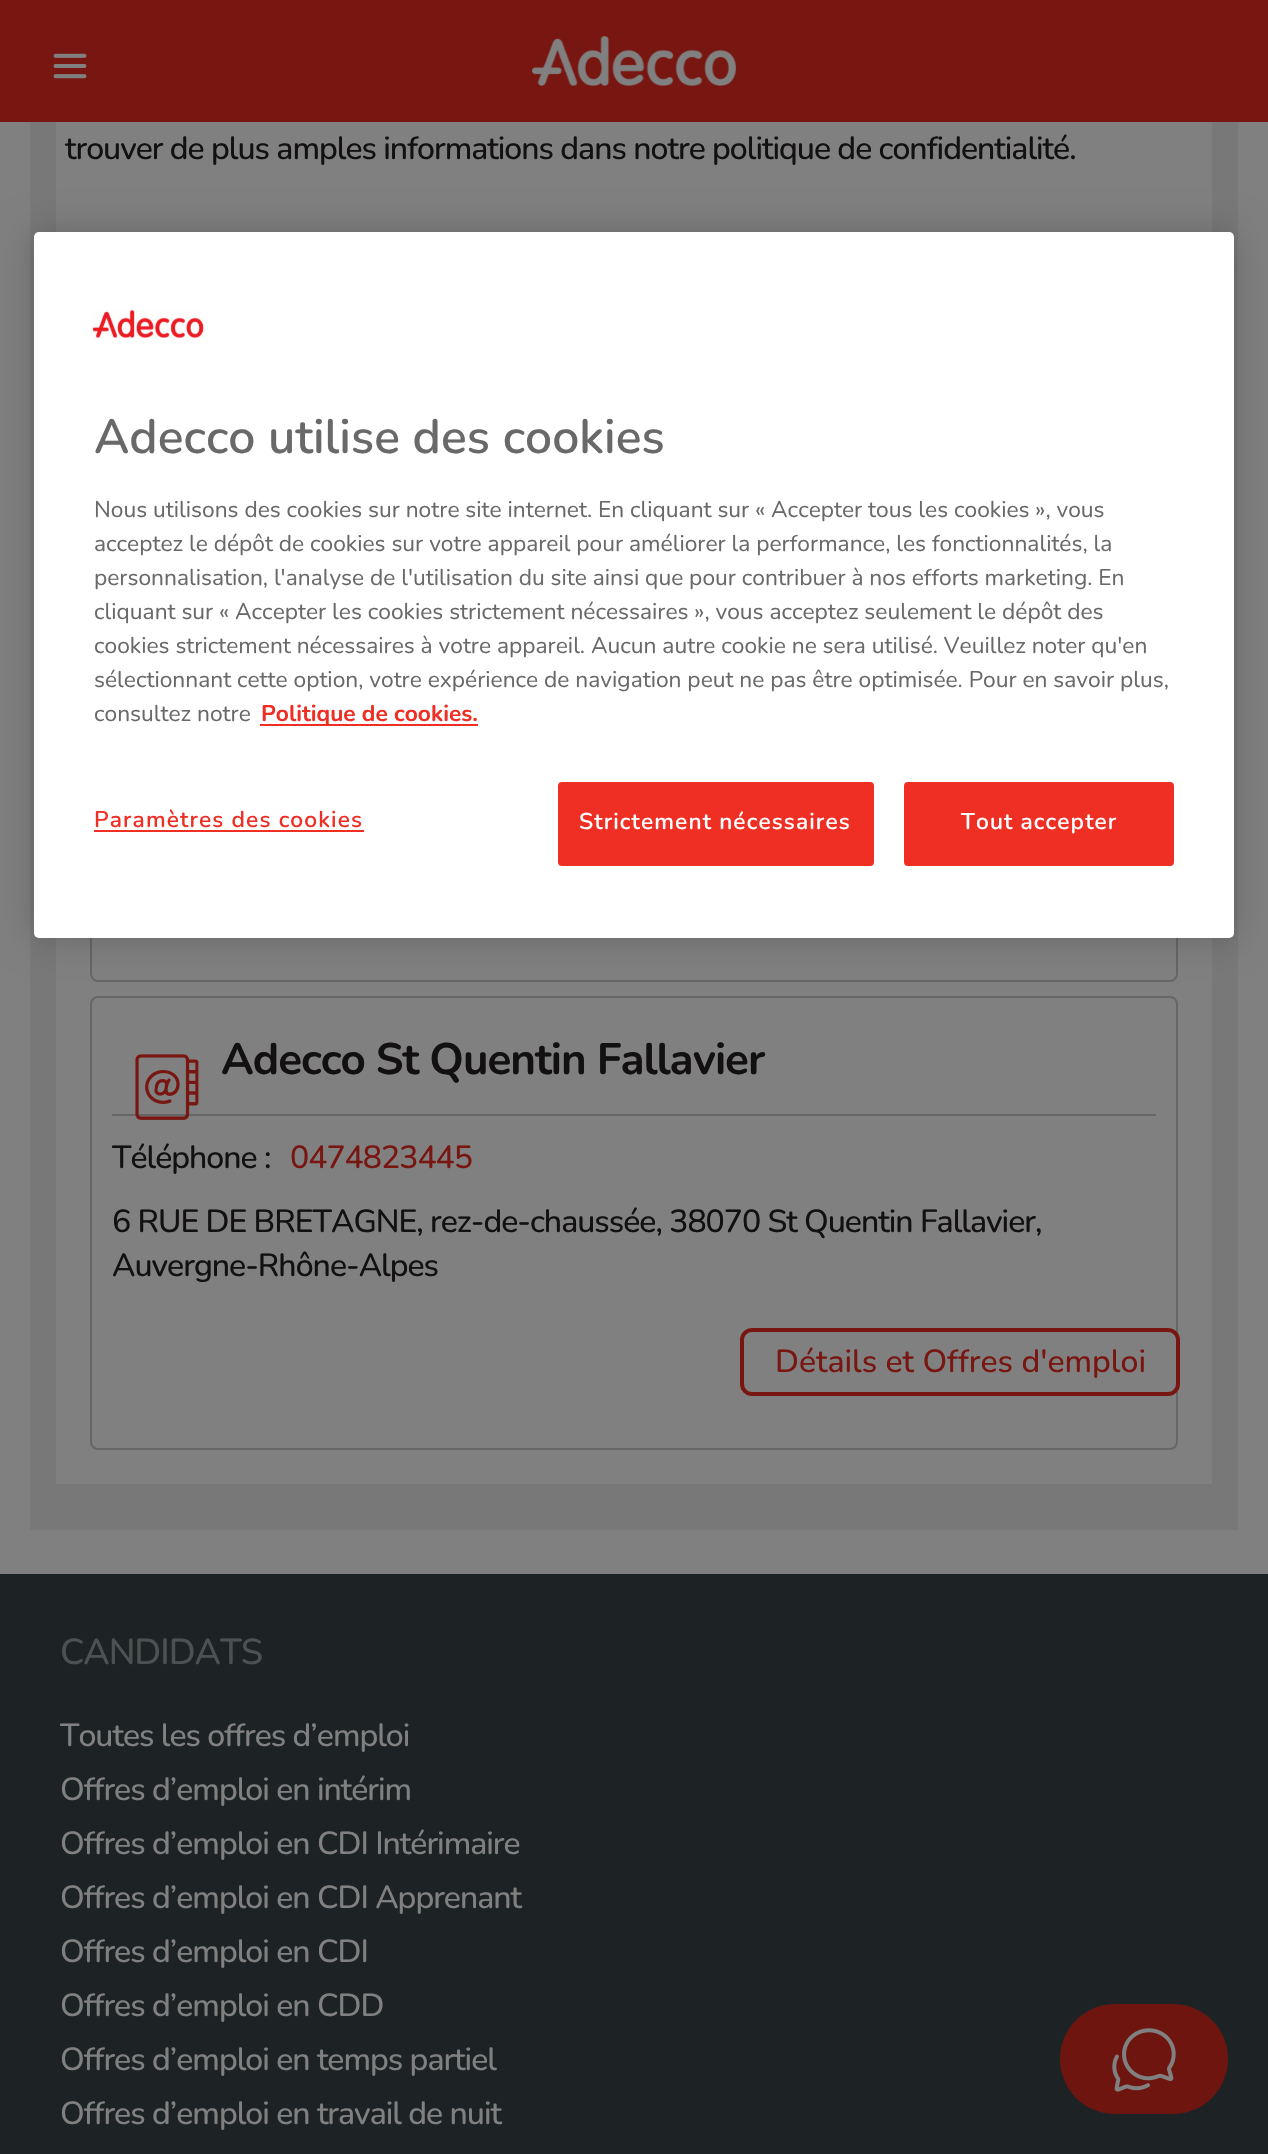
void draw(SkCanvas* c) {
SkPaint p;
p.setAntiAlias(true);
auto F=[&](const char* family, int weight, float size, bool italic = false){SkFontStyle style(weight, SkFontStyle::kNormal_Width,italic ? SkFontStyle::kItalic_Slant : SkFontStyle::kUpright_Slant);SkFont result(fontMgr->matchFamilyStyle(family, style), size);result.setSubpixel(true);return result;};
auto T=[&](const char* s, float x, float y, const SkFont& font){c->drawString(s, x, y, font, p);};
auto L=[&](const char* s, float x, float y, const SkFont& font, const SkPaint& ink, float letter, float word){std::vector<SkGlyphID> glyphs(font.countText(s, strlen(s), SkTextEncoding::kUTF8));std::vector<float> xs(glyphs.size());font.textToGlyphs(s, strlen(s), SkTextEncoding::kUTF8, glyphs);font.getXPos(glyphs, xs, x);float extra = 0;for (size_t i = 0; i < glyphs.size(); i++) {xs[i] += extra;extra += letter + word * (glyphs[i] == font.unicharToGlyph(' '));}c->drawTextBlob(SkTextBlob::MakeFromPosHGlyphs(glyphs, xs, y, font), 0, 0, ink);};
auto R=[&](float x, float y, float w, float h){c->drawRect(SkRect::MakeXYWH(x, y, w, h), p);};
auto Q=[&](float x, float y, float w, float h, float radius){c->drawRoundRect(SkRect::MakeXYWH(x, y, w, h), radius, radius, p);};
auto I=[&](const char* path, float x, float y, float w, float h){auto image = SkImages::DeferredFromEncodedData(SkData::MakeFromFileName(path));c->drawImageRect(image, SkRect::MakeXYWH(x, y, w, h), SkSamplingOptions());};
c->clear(0xff808080);
p.setColor(0xff781712);
R(0,0,1268,122);
I("1.png",53,53,34,26);
I("2.png",532,36,204,50);
p.setColor(0xff787878);
R(30,122,1208,1408);
p.setColor(0xff808080);
R(56,122,1156,1362);
auto f1 = F("Nunito",500,32);
p.setColor(0xff121010);
L("trouver de plus amples informations dans notre politique de confidentialité.",65,159,f1,p,-1,0);
p.setStroke(true);
p.setStrokeWidth(2);
p.setColor(0xff666666);
c->drawRoundRect(SkRect::MakeXYWH(91,529,1086,452),7,7,p);
c->drawRoundRect(SkRect::MakeXYWH(91,997,1086,452),7,7,p);
p.setStroke(false);
R(112,1114,1044,2);
I("3.png",135,1054,64,66);
auto f2 = F("Nunito",700,44);
p.setColor(0xff121010);
L("Adecco St Quentin Fallavier",221,1074,f2,p,-1,0);
L("Téléphone :",112,1168,f1,p,-1,0);
p.setColor(0xff781712);
L("0474823445",290,1168,f1,p,-1,0);
p.setColor(0xff121010);
L("6 RUE DE BRETAGNE, rez-de-chaussée, 38070 St Quentin Fallavier,",112,1232,f1,p,-1,0);
L("Auvergne-Rhône-Alpes",112,1276,f1,p,-1,0);
p.setColor(0xff808080);
c->drawRoundRect(SkRect::MakeXYWH(742,1330,436,64),10,10,p);
p.setStroke(true);
p.setStrokeWidth(4);
p.setColor(0xff781712);
c->drawRoundRect(SkRect::MakeXYWH(742,1330,436,64),10,10,p);
p.setStroke(false);
T("Détails et Offres d'emploi",775,1372,f1);
p.setColor(0xff1d2224);
R(0,1574,1268,580);
auto f3 = F("Nunito",500,36);
p.setColor(0xff4e5152);
L("CANDIDATS",60,1664,f3,p,-1,0);
p.setColor(0xff808080);
L("Toutes les offres d’emploi",60,1746,f1,p,-1,0);
L("Offres d’emploi en intérim",60,1800,f1,p,-1,0);
L("Offres d’emploi en CDI Intérimaire",60,1854,f1,p,-1,0);
L("Offres d’emploi en CDI Apprenant",60,1908,f1,p,-1,0);
L("Offres d’emploi en CDI",60,1962,f1,p,-1,0);
L("Offres d’emploi en CDD",60,2016,f1,p,-1,0);
L("Offres d’emploi en temps partiel",60,2070,f1,p,-1,0);
L("Offres d’emploi en travail de nuit",60,2124,f1,p,-1,0);
p.setColor(0x33000000);
p.setMaskFilter(SkMaskFilter::MakeBlur(kNormal_SkBlurStyle, 18));
c->drawRoundRect(SkRect::MakeXYWH(34,232,1200,706),5,5,p);
p.setMaskFilter(nullptr);
p.setColor(0xffffffff);
Q(34,232,1200,706,5);
I("4.png",91,309,113,30);
auto f4 = F("Nunito",600,48);
p.setColor(0xff696969);
T("Adecco utilise des cookies",94,453,f4);
auto f5 = F("Nunito",400,22.75);
T("Nous utilisons des cookies sur notre site internet. En cliquant sur « Accepter tous les cookies », vous",94,517,f5);
T("acceptez le dépôt de cookies sur votre appareil pour améliorer la performance, les fonctionnalités, la",94,551,f5);
T("personnalisation, l'analyse de l'utilisation du site ainsi que pour contribuer à nos efforts marketing. En",94,585,f5);
T("cliquant sur « Accepter les cookies strictement nécessaires », vous acceptez seulement le dépôt des",94,619,f5);
T("cookies strictement nécessaires à votre appareil. Aucun autre cookie ne sera utilisé. Veuillez noter qu'en",94,653,f5);
T("sélectionnant cette option, votre expérience de navigation peut ne pas être optimisée. Pour en savoir plus,",94,687,f5);
T("consultez notre",94,721,f5);
p.setColor(0xffef2e24);
R(260,724,218,2);
auto f6 = F("Nunito",700,22.75);
T("Politique de cookies.",261,721,f6);
auto f7 = F("Nunito",600,22.75);
L("Paramètres des cookies",94,827,f7,p,1.1,0);
R(94,830,270,2);
c->drawRoundRect(SkRect::MakeXYWH(559,783,314,82),3,3,p);
p.setStroke(true);
p.setStrokeWidth(2);
c->drawRoundRect(SkRect::MakeXYWH(559,783,314,82),3,3,p);
p.setStroke(false);
p.setColor(0xffffffff);
L("Strictement nécessaires",579,829,f7,p,1.1,0);
p.setColor(0xffef2e24);
c->drawRoundRect(SkRect::MakeXYWH(905,783,268,82),3,3,p);
p.setStroke(true);
c->drawRoundRect(SkRect::MakeXYWH(905,783,268,82),3,3,p);
p.setStroke(false);
p.setColor(0xffffffff);
L("Tout accepter",961,829,f7,p,1.1,0);
p.setColor(0xff6d150e);
Q(1060,2004,168,110,55);
I("5.png",1112,2028,64,64);
}
